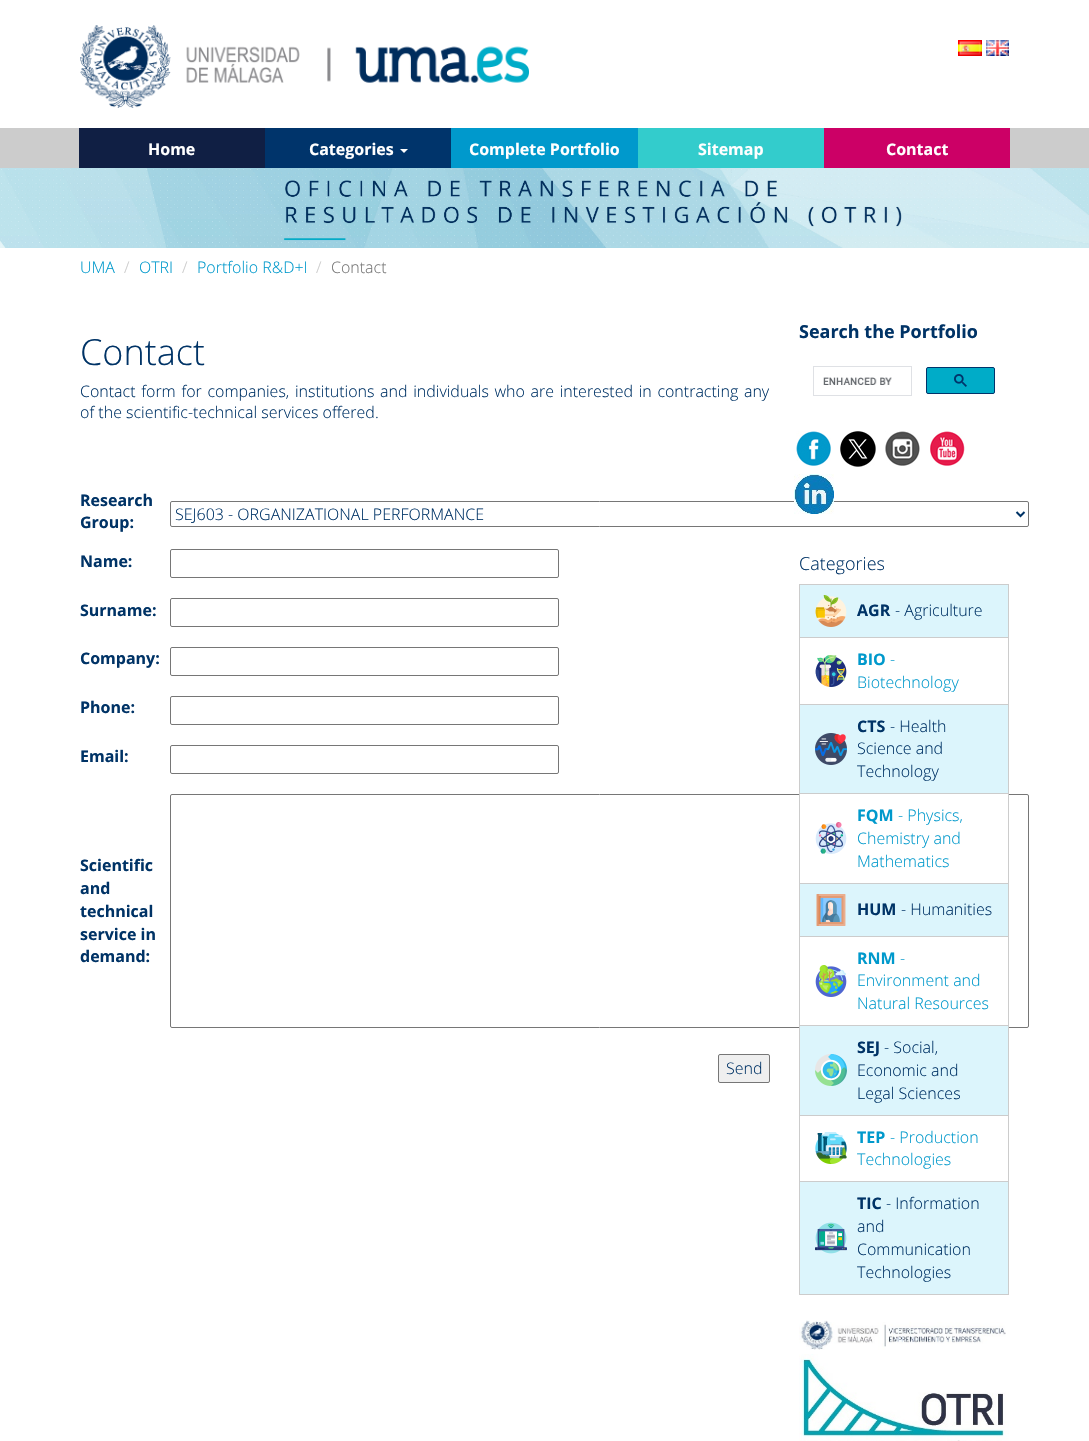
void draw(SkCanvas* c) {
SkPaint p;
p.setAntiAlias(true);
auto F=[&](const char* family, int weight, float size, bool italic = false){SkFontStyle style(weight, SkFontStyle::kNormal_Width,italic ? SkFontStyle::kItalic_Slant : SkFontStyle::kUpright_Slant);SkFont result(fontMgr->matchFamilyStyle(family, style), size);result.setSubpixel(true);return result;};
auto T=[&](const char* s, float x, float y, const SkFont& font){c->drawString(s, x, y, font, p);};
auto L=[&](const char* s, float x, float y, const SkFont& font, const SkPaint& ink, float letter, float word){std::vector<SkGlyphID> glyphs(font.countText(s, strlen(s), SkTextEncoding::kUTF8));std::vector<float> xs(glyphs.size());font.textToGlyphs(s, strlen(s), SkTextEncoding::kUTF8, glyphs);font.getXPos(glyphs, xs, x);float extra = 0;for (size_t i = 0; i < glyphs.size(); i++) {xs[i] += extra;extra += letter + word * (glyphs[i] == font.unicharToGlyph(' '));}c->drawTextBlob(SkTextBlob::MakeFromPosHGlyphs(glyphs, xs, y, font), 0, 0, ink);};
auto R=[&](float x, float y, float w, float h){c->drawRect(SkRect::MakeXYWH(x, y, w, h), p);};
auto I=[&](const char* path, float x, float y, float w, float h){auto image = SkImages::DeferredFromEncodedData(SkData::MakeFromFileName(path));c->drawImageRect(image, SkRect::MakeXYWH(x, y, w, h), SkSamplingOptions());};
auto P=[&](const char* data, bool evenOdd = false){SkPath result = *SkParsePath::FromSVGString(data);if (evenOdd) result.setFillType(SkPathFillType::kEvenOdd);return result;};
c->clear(0xffffffff);
I("1.png",80,25,449,83);
I("2.png",958,40,24,16);
I("3.png",986,40,23,16);
p.setColor(0xffcccccc);
R(0,128,1089,40);
p.setColor(0xff101f44);
R(79,128,186,40);
auto f1 = F("Open Sans",700,16);
p.setColor(0xffffffff);
T("Home",148,155,f1);
p.setColor(0xff00346b);
R(265,128,186,40);
p.setColor(0xffffffff);
T("Categories",309,155,f1);
c->drawPath(P("M400 149h8l-4 4z"),p);
p.setColor(0xff0099cc);
R(451,128,187,40);
p.setColor(0xffffffff);
T("Complete Portfolio",469,155,f1);
p.setColor(0xff33cccc);
R(638,128,186,40);
p.setColor(0xffffffff);
T("Sitemap",698,155,f1);
p.setColor(0xffcc0066);
R(824,128,186,40);
p.setColor(0xffffffff);
T("Contact",886,155,f1);
I("4.png",0,168,1089,80);
auto f2 = F("Open Sans",300,16);
p.setColor(0xff0099cc);
T("UMA",80,273,f2);
p.setColor(0xffcccccc);
T("/",124,273,f2);
p.setColor(0xff0099cc);
T("OTRI",139,273,f2);
p.setColor(0xffcccccc);
T("/",182,273,f2);
p.setColor(0xff0099cc);
T("Portfolio R&D+I",197,273,f2);
p.setColor(0xffcccccc);
T("/",316,273,f2);
p.setColor(0xff777777);
T("Contact",331,273,f2);
auto f3 = F("Open Sans",300,36);
p.setColor(0xff003366);
T("Contact",80,365,f3);
L("Contact form for companies, institutions and individuals who are interested in contracting any",80,397,f2,p,0,1.5);
T("of the scientific-technical services offered.",80,418,f2);
T("Research",80,506,f1);
T("Group:",80,528,f1);
p.setStroke(true);
p.setStrokeWidth(1);
p.setColor(0xff767676);
c->drawRoundRect(SkRect::MakeXYWH(170.5,501.5,858,25),1.5,1.5,p);
p.setStrokeWidth(2);
p.setColor(0xff003366);
c->drawPath(P("M1016.5 512l4 4l4-4"),p);
p.setStroke(false);
T("SEJ603 - ORGANIZATIONAL PERFORMANCE",175,520,f2);
T("Name:",80,567,f1);
p.setStroke(true);
p.setStrokeWidth(1);
p.setColor(0xff767676);
c->drawRoundRect(SkRect::MakeXYWH(170.5,549.5,388,28),1.5,1.5,p);
p.setStroke(false);
p.setColor(0xff003366);
T("Surname:",80,616,f1);
p.setStroke(true);
p.setColor(0xff767676);
c->drawRoundRect(SkRect::MakeXYWH(170.5,598.5,388,28),1.5,1.5,p);
p.setStroke(false);
p.setColor(0xff003366);
T("Company:",80,664,f1);
p.setStroke(true);
p.setColor(0xff767676);
c->drawRoundRect(SkRect::MakeXYWH(170.5,647.5,388,28),1.5,1.5,p);
p.setStroke(false);
p.setColor(0xff003366);
T("Phone:",80,713,f1);
p.setStroke(true);
p.setColor(0xff767676);
c->drawRoundRect(SkRect::MakeXYWH(170.5,696.5,388,28),1.5,1.5,p);
p.setStroke(false);
p.setColor(0xff003366);
T("Email:",80,762,f1);
p.setStroke(true);
p.setColor(0xff767676);
c->drawRoundRect(SkRect::MakeXYWH(170.5,745.5,388,28),1.5,1.5,p);
p.setStroke(false);
p.setColor(0xff003366);
T("Scientific",80,871,f1);
T("and",80,894,f1);
T("technical",80,917,f1);
T("service in",80,940,f1);
T("demand:",80,962,f1);
p.setStroke(true);
p.setColor(0xff767676);
c->drawRoundRect(SkRect::MakeXYWH(170.5,794.5,858,233),1.5,1.5,p);
p.setStroke(false);
p.setColor(0xffefefef);
c->drawRoundRect(SkRect::MakeXYWH(718.5,1054.5,51,28),1.5,1.5,p);
p.setStroke(true);
p.setColor(0xff767676);
c->drawRoundRect(SkRect::MakeXYWH(718.5,1054.5,51,28),1.5,1.5,p);
p.setStroke(false);
p.setColor(0xff003366);
T("Send",726,1074,f2);
auto f4 = F("Open Sans",700,18);
T("Search the Portfolio",799,338,f4);
p.setStroke(true);
p.setColor(0xffdfe1e5);
c->drawRect(SkRect::MakeXYWH(813.5,366.5,98,29),p);
I("5.png",823,377,69,8);
p.setStroke(false);
p.setColor(0xff00acc8);
c->drawRoundRect(SkRect::MakeXYWH(926.5,367.5,68,26),1.5,1.5,p);
p.setStroke(true);
p.setColor(0xff00346b);
c->drawRoundRect(SkRect::MakeXYWH(926.5,367.5,68,26),1.5,1.5,p);
I("6.png",954,374,13,13);
I("7.png",796,431,35,35);
I("8.png",840,431,36,36);
I("9.png",885,431,35,35);
I("10.png",930,431,35,35);
I("11.png",794,474,40,40);
auto f5 = F("Open Sans",300,18);
p.setStroke(false);
p.setColor(0xff003366);
T("Categories",799,570,f5);
p.setColor(0xffdcf5fc);
c->drawRect(SkRect::MakeXYWH(799.5,584.5,209,53),p);
p.setStroke(true);
p.setColor(0xffcccccc);
c->drawRect(SkRect::MakeXYWH(799.5,584.5,209,53),p);
I("12.png",815,595,32,32);
p.setStroke(false);
p.setColor(0xff003366);
T("AGR",857,616,f1);
T("- Agriculture",895,616,f2);
p.setStroke(true);
p.setColor(0xffcccccc);
c->drawRect(SkRect::MakeXYWH(799.5,637.5,209,67),p);
I("13.png",815,655,32,32);
p.setStroke(false);
p.setColor(0xff0099cc);
T("BIO",857,665,f1);
T("-",890,665,f2);
T("Biotechnology",857,688,f2);
p.setColor(0xffdcf5fc);
c->drawRect(SkRect::MakeXYWH(799.5,704.5,209,89),p);
p.setStroke(true);
p.setColor(0xffcccccc);
c->drawRect(SkRect::MakeXYWH(799.5,704.5,209,89),p);
I("14.png",815,733,32,32);
p.setStroke(false);
p.setColor(0xff003366);
T("CTS",857,732,f1);
T("- Health",890,732,f2);
T("Science and",857,754,f2);
T("Technology",857,777,f2);
p.setColor(0xffffffff);
R(800,794,208,1);
p.setStroke(true);
p.setColor(0xffcccccc);
c->drawRect(SkRect::MakeXYWH(799.5,793.5,209,90),p);
I("15.png",815,822,32,32);
p.setStroke(false);
p.setColor(0xff0099cc);
T("FQM",857,821,f1);
T("- Physics,",898,821,f2);
T("Chemistry and",857,844,f2);
T("Mathematics",857,867,f2);
p.setColor(0xffdcf5fc);
c->drawRect(SkRect::MakeXYWH(799.5,883.5,209,53),p);
p.setStroke(true);
p.setColor(0xffcccccc);
c->drawRect(SkRect::MakeXYWH(799.5,883.5,209,53),p);
I("16.png",816,894,30,32);
p.setStroke(false);
p.setColor(0xff003366);
T("HUM",857,915,f1);
T("- Humanities",901,915,f2);
p.setStroke(true);
p.setColor(0xffcccccc);
c->drawRect(SkRect::MakeXYWH(799.5,936.5,209,89),p);
I("17.png",815,965,32,32);
p.setStroke(false);
p.setColor(0xff0099cc);
T("RNM",857,964,f1);
T("-",900,964,f2);
T("Environment and",857,986,f2);
T("Natural Resources",857,1009,f2);
p.setColor(0xffdcf5fc);
c->drawRect(SkRect::MakeXYWH(799.5,1025.5,209,90),p);
p.setStroke(true);
p.setColor(0xffcccccc);
c->drawRect(SkRect::MakeXYWH(799.5,1025.5,209,90),p);
I("18.png",815,1054,32,32);
p.setStroke(false);
p.setColor(0xff003366);
T("SEJ",857,1053,f1);
T("- Social,",884,1053,f2);
T("Economic and",857,1076,f2);
T("Legal Sciences",857,1099,f2);
p.setStroke(true);
p.setColor(0xffcccccc);
c->drawRect(SkRect::MakeXYWH(799.5,1115.5,209,66),p);
I("19.png",815,1132,32,32);
p.setStroke(false);
p.setColor(0xff0099cc);
T("TEP",857,1143,f1);
T("- Production",890,1143,f2);
T("Technologies",857,1165,f2);
p.setColor(0xffdcf5fc);
c->drawRect(SkRect::MakeXYWH(799.5,1181.5,209,113),p);
p.setStroke(true);
p.setColor(0xffcccccc);
c->drawRect(SkRect::MakeXYWH(799.5,1181.5,209,113),p);
I("20.png",815,1222,32,32);
p.setStroke(false);
p.setColor(0xff003366);
T("TIC",857,1209,f1);
T("- Information",886,1209,f2);
T("and",857,1232,f2);
T("Communication",857,1255,f2);
T("Technologies",857,1278,f2);
I("21.png",799,1320,207,30);
I("22.png",799,1354,210,87);
}
